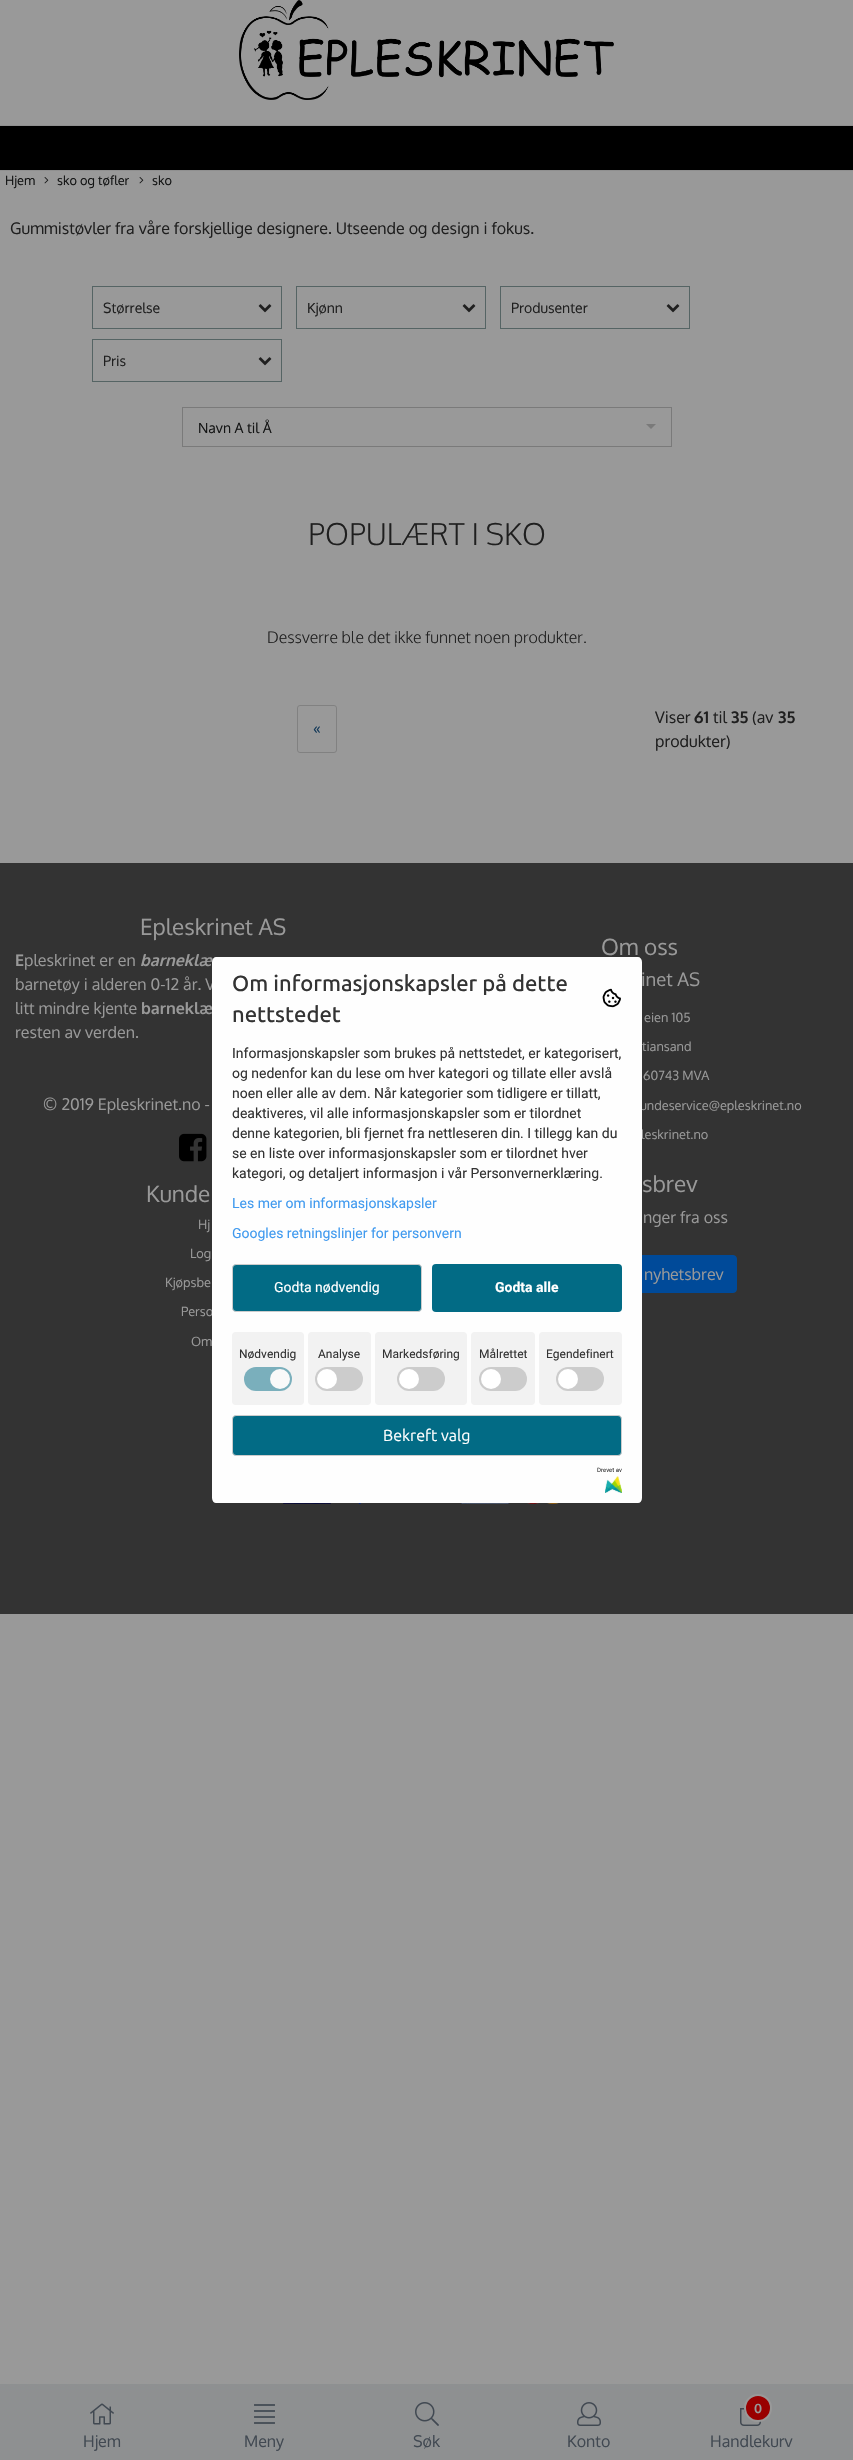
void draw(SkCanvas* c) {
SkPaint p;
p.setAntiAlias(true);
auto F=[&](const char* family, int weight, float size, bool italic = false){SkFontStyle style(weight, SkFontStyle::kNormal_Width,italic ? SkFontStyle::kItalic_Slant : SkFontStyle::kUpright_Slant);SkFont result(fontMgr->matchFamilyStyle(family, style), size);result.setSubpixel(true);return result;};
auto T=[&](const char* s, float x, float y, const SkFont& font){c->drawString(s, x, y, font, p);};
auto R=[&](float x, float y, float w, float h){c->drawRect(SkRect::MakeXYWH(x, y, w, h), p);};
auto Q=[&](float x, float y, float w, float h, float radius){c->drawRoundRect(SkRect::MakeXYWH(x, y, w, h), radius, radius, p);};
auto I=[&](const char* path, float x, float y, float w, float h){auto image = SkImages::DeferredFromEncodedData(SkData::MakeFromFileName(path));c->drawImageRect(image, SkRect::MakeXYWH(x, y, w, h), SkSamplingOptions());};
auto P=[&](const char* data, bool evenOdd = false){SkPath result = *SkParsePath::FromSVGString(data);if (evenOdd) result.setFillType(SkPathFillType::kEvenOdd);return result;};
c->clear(0xff999999);
I("1.png",239,0,375,100);
p.setColor(0xff000000);
R(0,126,853,44);
p.setColor(0xff8f8f8f);
R(0,125,853,1);
R(0,170,853,1);
auto f1 = F("Oxygen",400,12.75);
p.setColor(0xff131414);
T("Hjem",5,185,f1);
I("2.png",44,177,5,7);
T("sko og tøfler",57,185,f1);
I("2.png",139,177,5,7);
T("sko",152,185,f1);
auto f2 = F("Oxygen",400,16);
p.setColor(0xff1f1f1f);
T("Gummistøvler fra våre forskjellige designere. Utseende og design i fokus.",10,234,f2);
p.setStroke(true);
p.setStrokeWidth(1);
p.setColor(0xff556464);
c->drawRect(SkRect::MakeXYWH(92.5,286.5,189,42),p);
auto f3 = F("Oxygen",400,14);
p.setStroke(false);
p.setColor(0xff1f1f1f);
T("Størrelse",103,313,f3);
I("3.png",258,304,14,9);
p.setStroke(true);
p.setColor(0xff556464);
c->drawRect(SkRect::MakeXYWH(296.5,286.5,189,42),p);
p.setStroke(false);
p.setColor(0xff1f1f1f);
T("Kjønn",307,313,f3);
I("3.png",462,304,14,9);
p.setStroke(true);
p.setColor(0xff556464);
c->drawRect(SkRect::MakeXYWH(500.5,286.5,189,42),p);
p.setStroke(false);
p.setColor(0xff1f1f1f);
T("Produsenter",511,313,f3);
I("3.png",666,304,14,9);
p.setStroke(true);
p.setColor(0xff556464);
c->drawRect(SkRect::MakeXYWH(92.5,339.5,189,42),p);
p.setStroke(false);
p.setColor(0xff1f1f1f);
T("Pris",103,366,f3);
I("3.png",258,357,14,9);
p.setStroke(true);
p.setColor(0xff7a7a7a);
c->drawRect(SkRect::MakeXYWH(182.5,407.5,489,39),p);
p.setStroke(false);
p.setColor(0xff131414);
T("Navn A til Å",198,433,f3);
p.setColor(0xff7a7a7a);
c->drawPath(P("M646 424h10l-5 5z"),p);
auto f4 = F("Oxygen",300,30);
p.setColor(0xff1f1f1f);
T("POPULÆRT I SKO",308,545,f4);
auto f5 = F("Oxygen",300,16);
T("Dessverre ble det ikke funnet noen produkter.",267,643,f5);
p.setStroke(true);
p.setColor(0xff818181);
c->drawRoundRect(SkRect::MakeXYWH(297.5,705.5,39,47),2.5,2.5,p);
p.setStroke(false);
p.setColor(0xff133959);
T("«",313,734,f2);
p.setColor(0xff1f1f1f);
T("Viser",655,723,f2);
auto f6 = F("Oxygen",700,16);
T("61",694,723,f6);
T("til",713,723,f2);
T("35",731,723,f6);
T("(av",752,723,f2);
T("35",778,723,f6);
T("produkter)",655,747,f2);
p.setColor(0xff333333);
R(0,863,853,751);
auto f7 = F("Oxygen",400,22.5);
p.setColor(0xff999999);
T("Epleskrinet AS",140,935,f7);
T("E",15,966,f6);
T("pleskrinet er en",24,966,f2);
auto f8 = F("Oxygen",700,16,true);
T("barneklæ",140,966,f8);
T("barnetøy i alderen 0-12 år. V",15,990,f2);
T("litt mindre kjente",15,1014,f2);
T("barneklæ",141,1014,f6);
T("resten av verden.",15,1038,f2);
T("© 2019 Epleskrinet.no -",43,1110,f2);
I("4.png",179,1133,28,29);
T("Om oss",601,955,f7);
auto f9 = F("Oxygen",400,18.5);
T("inet AS",641,986,f9);
T("eien 105",644,1022,f1);
T("tiansand",642,1051,f1);
T("60743 MVA",643,1080,f1);
T("undeservice@epleskrinet.no",640,1110,f1);
T("leskrinet.no",641,1139,f1);
T("Kunde",146,1202,f7);
T("Hj",198,1229,f1);
T("Log",190,1258,f1);
T("Kjøpsbe",165,1287,f1);
T("Perso",181,1316,f1);
T("Om",191,1346,f1);
T("sbrev",642,1192,f7);
T("nger fra oss",643,1223,f2);
p.setColor(0xff004a99);
c->drawRoundRect(SkRect::MakeXYWH(543.5,1255.5,193,37),3.5,3.5,p);
p.setStroke(true);
c->drawRoundRect(SkRect::MakeXYWH(543.5,1255.5,193,37),3.5,3.5,p);
p.setStroke(false);
p.setColor(0xff999999);
T("nyhetsbrev",644,1280,f2);
I("5.png",283,1503,48,1);
I("6.png",358,1503,201,1);
p.setColor(0xfffefefe);
c->drawPath(P("M216 957h422c2 0 4 2 4 5v536c0 3-2 5-4 5h-422c-2 0-4-2-4-5v-536c0-3 2-5 4-5z"),p);
auto f10 = F("Ubuntu",500,22);
p.setColor(0xff333333);
T("Om informasjonskapsler på dette",232,991,f10);
T("nettstedet",232,1022,f10);
I("7.png",602,988,19,20);
auto f11 = F("Roboto",400,14);
T("Informasjonskapsler som brukes på nettstedet, er kategorisert,",232,1058,f11);
T("og nedenfor kan du lese om hver kategori og tillate eller avslå",232,1078,f11);
T("noen eller alle av dem. Når kategorier som tidligere er tillatt,",232,1098,f11);
T("deaktiveres, vil alle informasjonskapsler som er tilordnet",232,1118,f11);
T("denne kategorien, bli fjernet fra nettleseren din. I tillegg kan du",232,1138,f11);
T("se en liste over informasjonskapsler som er tilordnet hver",232,1158,f11);
T("kategori, og detaljert informasjon i vår Personvernerklæring.",232,1178,f11);
p.setColor(0xff409aef);
T("Les mer om informasjonskapsler",232,1208,f11);
T("Googles retningslinjer for personvern",232,1238,f11);
p.setColor(0xff026b85);
c->drawRoundRect(SkRect::MakeXYWH(232.5,1264.5,189,47),3.5,3.5,p);
p.setStroke(true);
p.setColor(0xffcccccc);
c->drawRoundRect(SkRect::MakeXYWH(232.5,1264.5,189,47),3.5,3.5,p);
p.setStroke(false);
p.setColor(0xffffffff);
T("Godta nødvendig",274,1292,f11);
p.setColor(0xff026b85);
Q(432,1264,190,48,4);
auto f12 = F("Roboto",700,14);
p.setColor(0xffffffff);
T("Godta alle",495,1292,f12);
p.setColor(0xfff2f2f2);
Q(232,1332,72,73,4);
auto f13 = F("Roboto",400,12);
p.setColor(0xff333333);
T("Nødvendig",239,1358,f13);
p.setColor(0xff7aafbc);
Q(244,1367,48,24,12);
p.setColor(0xfff9f9f9);
c->drawCircle(280,1379,10,p);
p.setColor(0xfff2f2f2);
Q(308,1332,63,73,4);
p.setColor(0xff333333);
T("Analyse",318,1358,f13);
p.setColor(0xffcccccc);
Q(315,1367,48,24,12);
p.setColor(0xffffffff);
c->drawCircle(327,1379,10,p);
p.setColor(0xfff2f2f2);
Q(375,1332,92,73,4);
p.setColor(0xff333333);
T("Markedsføring",382,1358,f13);
p.setColor(0xffcccccc);
Q(397,1367,48,24,12);
p.setColor(0xffffffff);
c->drawCircle(409,1379,10,p);
p.setColor(0xfff2f2f2);
Q(471,1332,64,73,4);
p.setColor(0xff333333);
T("Målrettet",479,1358,f13);
p.setColor(0xffcccccc);
Q(479,1367,48,24,12);
p.setColor(0xffffffff);
c->drawCircle(491,1379,10,p);
p.setColor(0xfff2f2f2);
Q(539,1332,83,73,4);
p.setColor(0xff333333);
T("Egendefinert",546,1358,f13);
p.setColor(0xffcccccc);
Q(556,1367,48,24,12);
p.setColor(0xffffffff);
c->drawCircle(568,1379,10,p);
p.setColor(0xff026b85);
c->drawRoundRect(SkRect::MakeXYWH(232.5,1415.5,389,40),3.5,3.5,p);
p.setStroke(true);
p.setColor(0xffcccccc);
c->drawRoundRect(SkRect::MakeXYWH(232.5,1415.5,389,40),3.5,3.5,p);
auto f14 = F("Ubuntu",400,16);
p.setStroke(false);
p.setColor(0xffffffff);
T("Bekreft valg",383,1441,f14);
auto f15 = F("Roboto",400,6);
p.setColor(0xff333333);
T("Drevet av",597,1472,f15);
I("8.png",605,1476,17,17);
p.setColor(0xff8e9091);
R(0,2384,853,76);
I("9.png",90,2403,24,22);
p.setColor(0xff414952);
T("Hjem",83,2447,f2);
I("10.png",254,2404,21,20);
T("Meny",244,2447,f2);
I("11.png",415,2402,24,24);
T("Søk",413,2447,f2);
I("12.png",577,2402,24,24);
T("Konto",567,2447,f2);
I("13.png",740,2406,21,20);
p.setColor(0xff990000);
c->drawCircle(758,2408,13,p);
p.setStroke(true);
p.setStrokeWidth(2);
p.setColor(0xff999999);
c->drawCircle(758,2408,13,p);
auto f16 = F("Oxygen",700,12.75);
p.setStroke(false);
T("0",754,2413,f16);
p.setColor(0xff414952);
T("Handlekurv",710,2447,f2);
}
